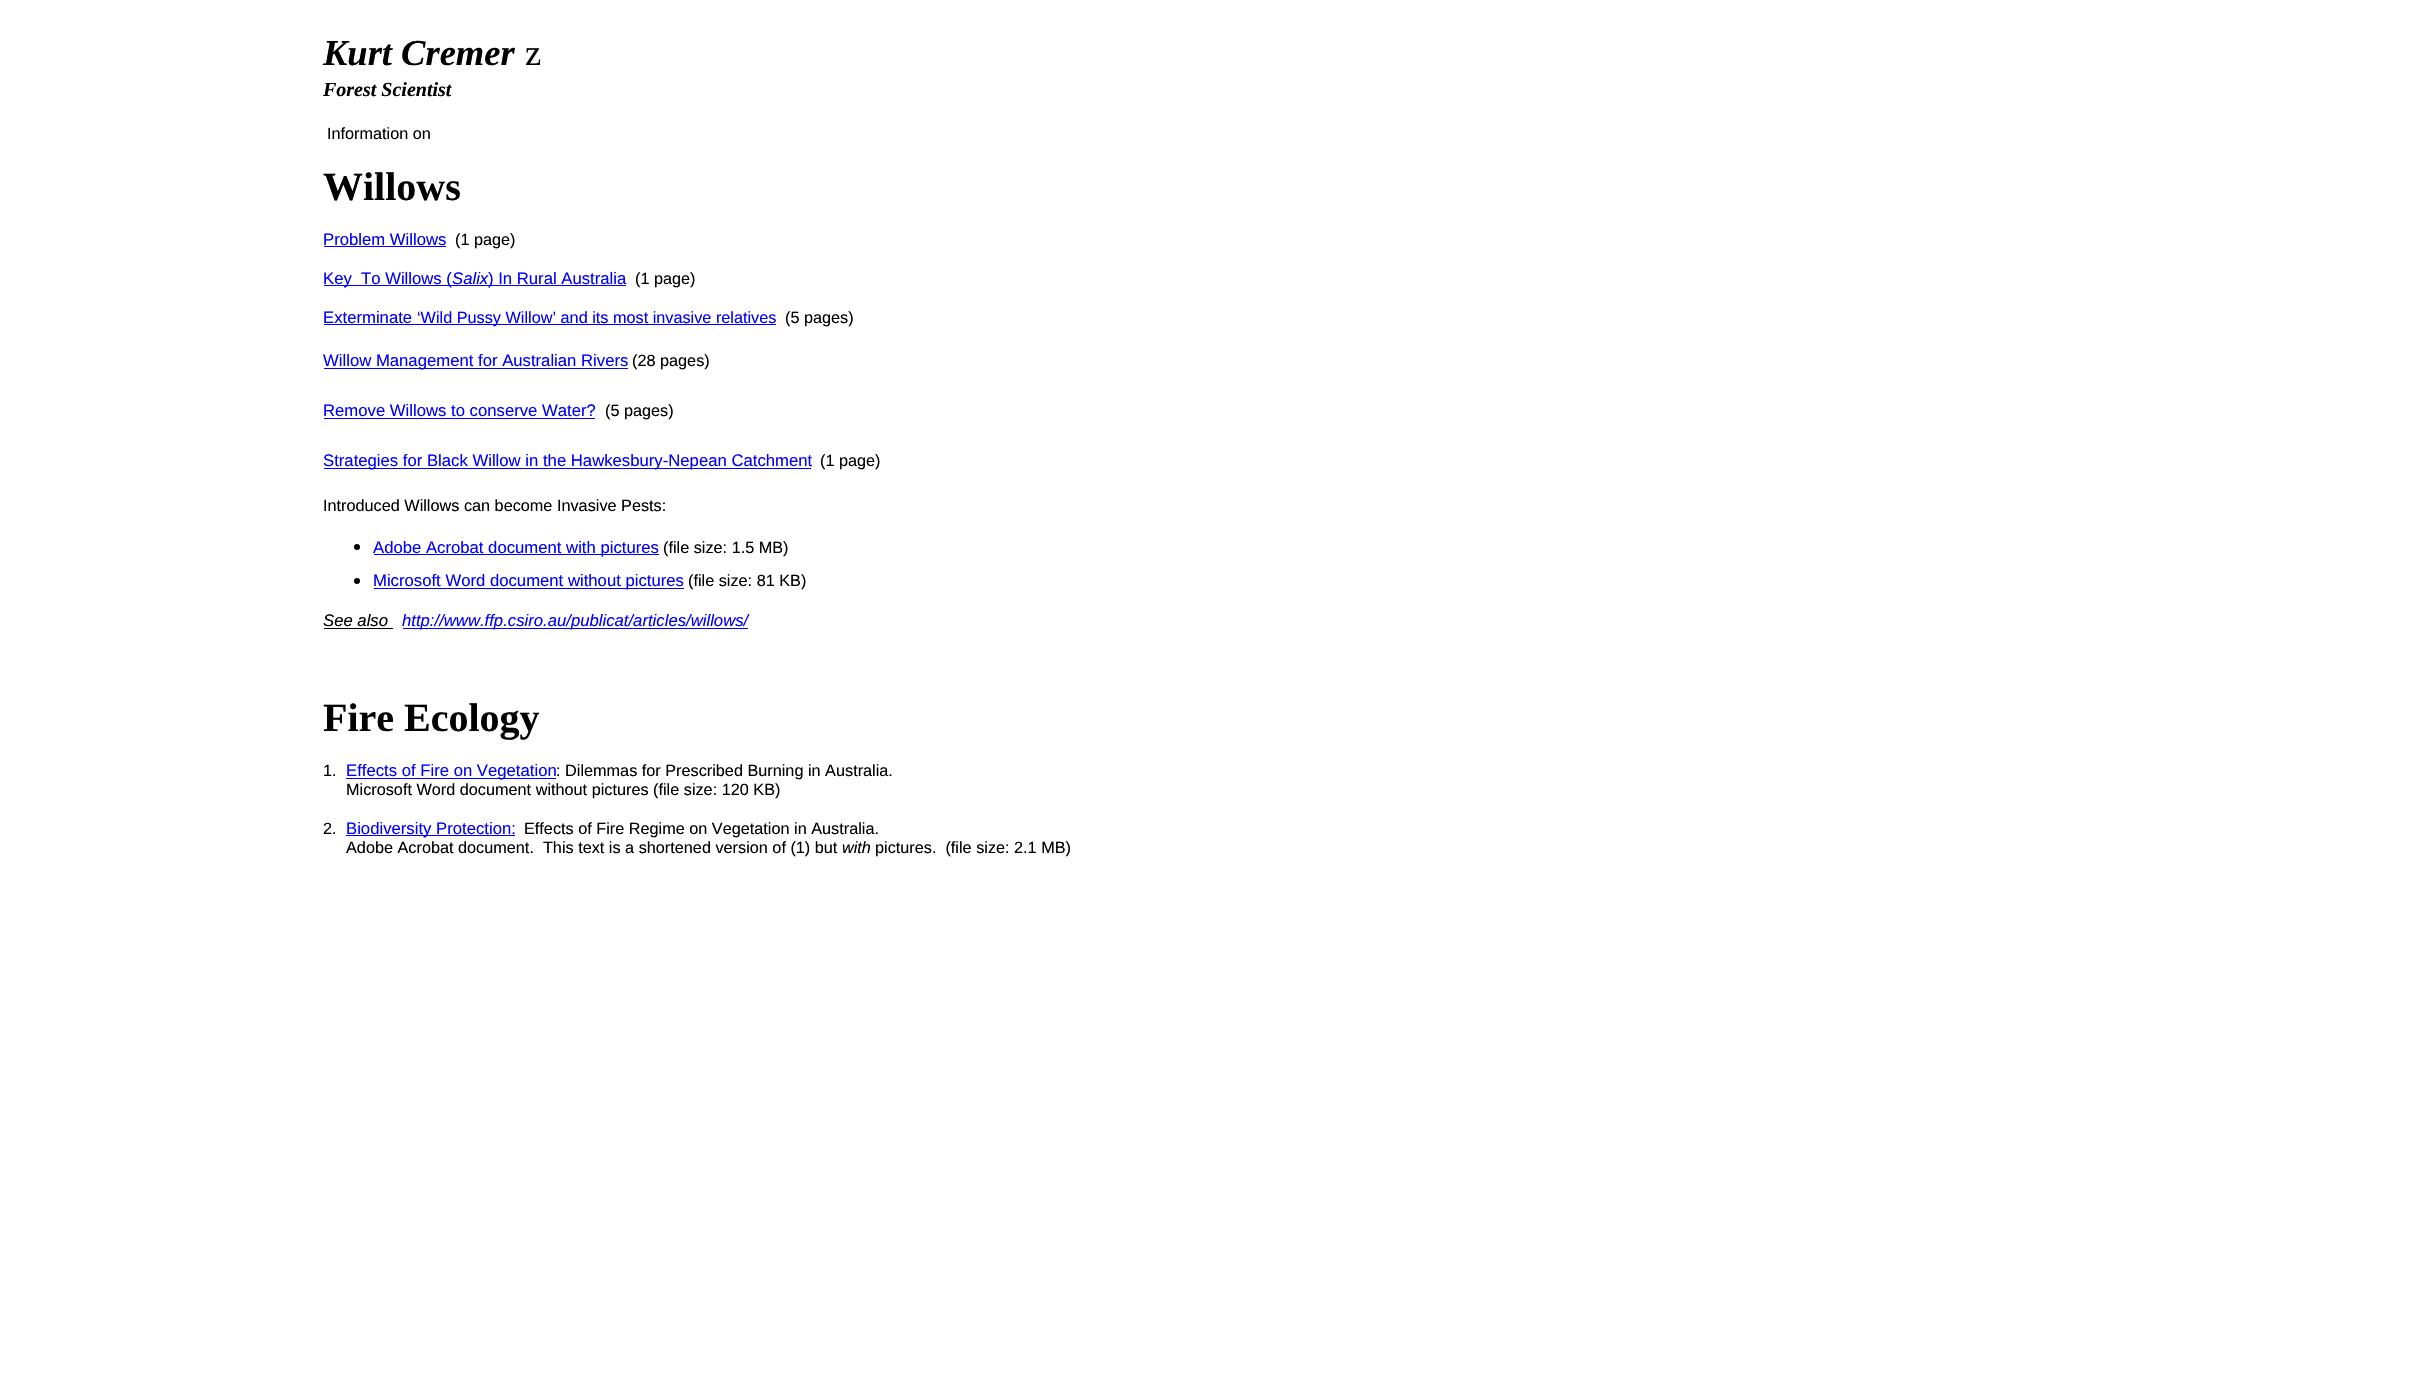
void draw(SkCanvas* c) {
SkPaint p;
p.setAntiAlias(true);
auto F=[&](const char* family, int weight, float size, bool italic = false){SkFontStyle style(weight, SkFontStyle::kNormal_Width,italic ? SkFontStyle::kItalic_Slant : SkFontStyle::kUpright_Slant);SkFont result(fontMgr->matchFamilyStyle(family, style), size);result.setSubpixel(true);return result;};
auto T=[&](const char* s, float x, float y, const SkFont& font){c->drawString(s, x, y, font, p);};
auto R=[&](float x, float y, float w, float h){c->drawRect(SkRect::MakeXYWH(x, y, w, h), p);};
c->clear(0xffffffff);
auto f1 = F("Liberation Serif",700,36.5,true);
p.setColor(0xff000000);
T("Kurt Cremer",323,65,f1);
auto f2 = F("Liberation Serif",400,36.5);
T("z",525,65,f2);
auto f3 = F("Liberation Serif",700,20,true);
T("Forest Scientist",323,96,f3);
auto f4 = F("Liberation Sans",400,16.25);
T("Information on",327,139,f4);
auto f5 = F("Liberation Serif",700,40);
T("Willows",323,200,f5);
auto f6 = F("Liberation Sans",400,16.7);
p.setColor(0xff0000ff);
T("Problem Willows",323,245,f6);
R(324,246,122,1);
p.setColor(0xff000000);
T("(1 page)",455,245,f4);
p.setColor(0xff0000ff);
R(324,285,302,1);
T("Key",323,284,f6);
T("To Willows (",361,284,f6);
auto f7 = F("Liberation Sans",400,16.7,true);
T("Salix",452,284,f7);
T(") In Rural Australia",488,284,f6);
p.setColor(0xff000000);
T("(1 page)",635,284,f4);
p.setColor(0xff0000ff);
T("Exterminate",323,323,f6);
R(324,324,452,1);
T("‘Wild Pussy Willow’ and its most invasive relatives",417,323,f4);
p.setColor(0xff000000);
T("(5 pages)",785,323,f4);
p.setColor(0xff0000ff);
R(324,368,304,1);
T("Willow Management for Australian Rivers",323,366,f6);
p.setColor(0xff000000);
T("(28 pages)",632,366,f4);
p.setColor(0xff0000ff);
T("Remove Willows to conserve Water?",323,416,f6);
R(324,418,271,1);
p.setColor(0xff000000);
T("(5 pages)",605,416,f4);
p.setColor(0xff0000ff);
R(324,468,487,1);
T("Strategies for Black Willow in the Hawkesbury-Nepean Catchment",323,466,f6);
p.setColor(0xff000000);
T("(1 page)",820,466,f4);
T("Introduced Willows can become Invasive Pests:",323,511,f4);
c->drawCircle(357,547,3,p);
p.setColor(0xff0000ff);
R(374,554,285,1);
T("Adobe Acrobat document with pictures",373,553,f6);
p.setColor(0xff000000);
T("(file size: 1.5 MB)",663,553,f4);
c->drawCircle(357,581,3,p);
p.setColor(0xff0000ff);
R(374,588,310,1);
T("Microsoft Word document without pictures",373,586,f6);
p.setColor(0xff000000);
T("(file size: 81 KB)",688,586,f4);
T("See also",323,626,f7);
R(324,628,69,1);
p.setColor(0xff0000ff);
R(403,628,345,1);
T("http://www.ffp.csiro.au/publicat/articles/willows/",402,626,f7);
p.setColor(0xff000000);
T("Fire Ecology",323,731,f5);
T("1.",323,776,f4);
p.setColor(0xff0000ff);
R(346,778,210,1);
T("Effects of Fire on Vegetation",346,776,f6);
p.setColor(0xff000000);
T(": Dilemmas for Prescribed Burning in Australia.",556,776,f4);
T("Microsoft Word document without pictures (file size: 120 KB)",346,795,f4);
T("2.",323,834,f4);
p.setColor(0xff0000ff);
R(346,835,169,1);
T("Biodiversity Protection:",346,834,f6);
p.setColor(0xff000000);
T("Effects of Fire Regime on Vegetation in Australia.",524,834,f4);
T("Adobe Acrobat document.  This text is a shortened version of (1) but",346,853,f4);
auto f8 = F("Liberation Sans",400,16.25,true);
T("with",842,853,f8);
T("pictures.  (file size: 2.1 MB)",875,853,f4);
}
